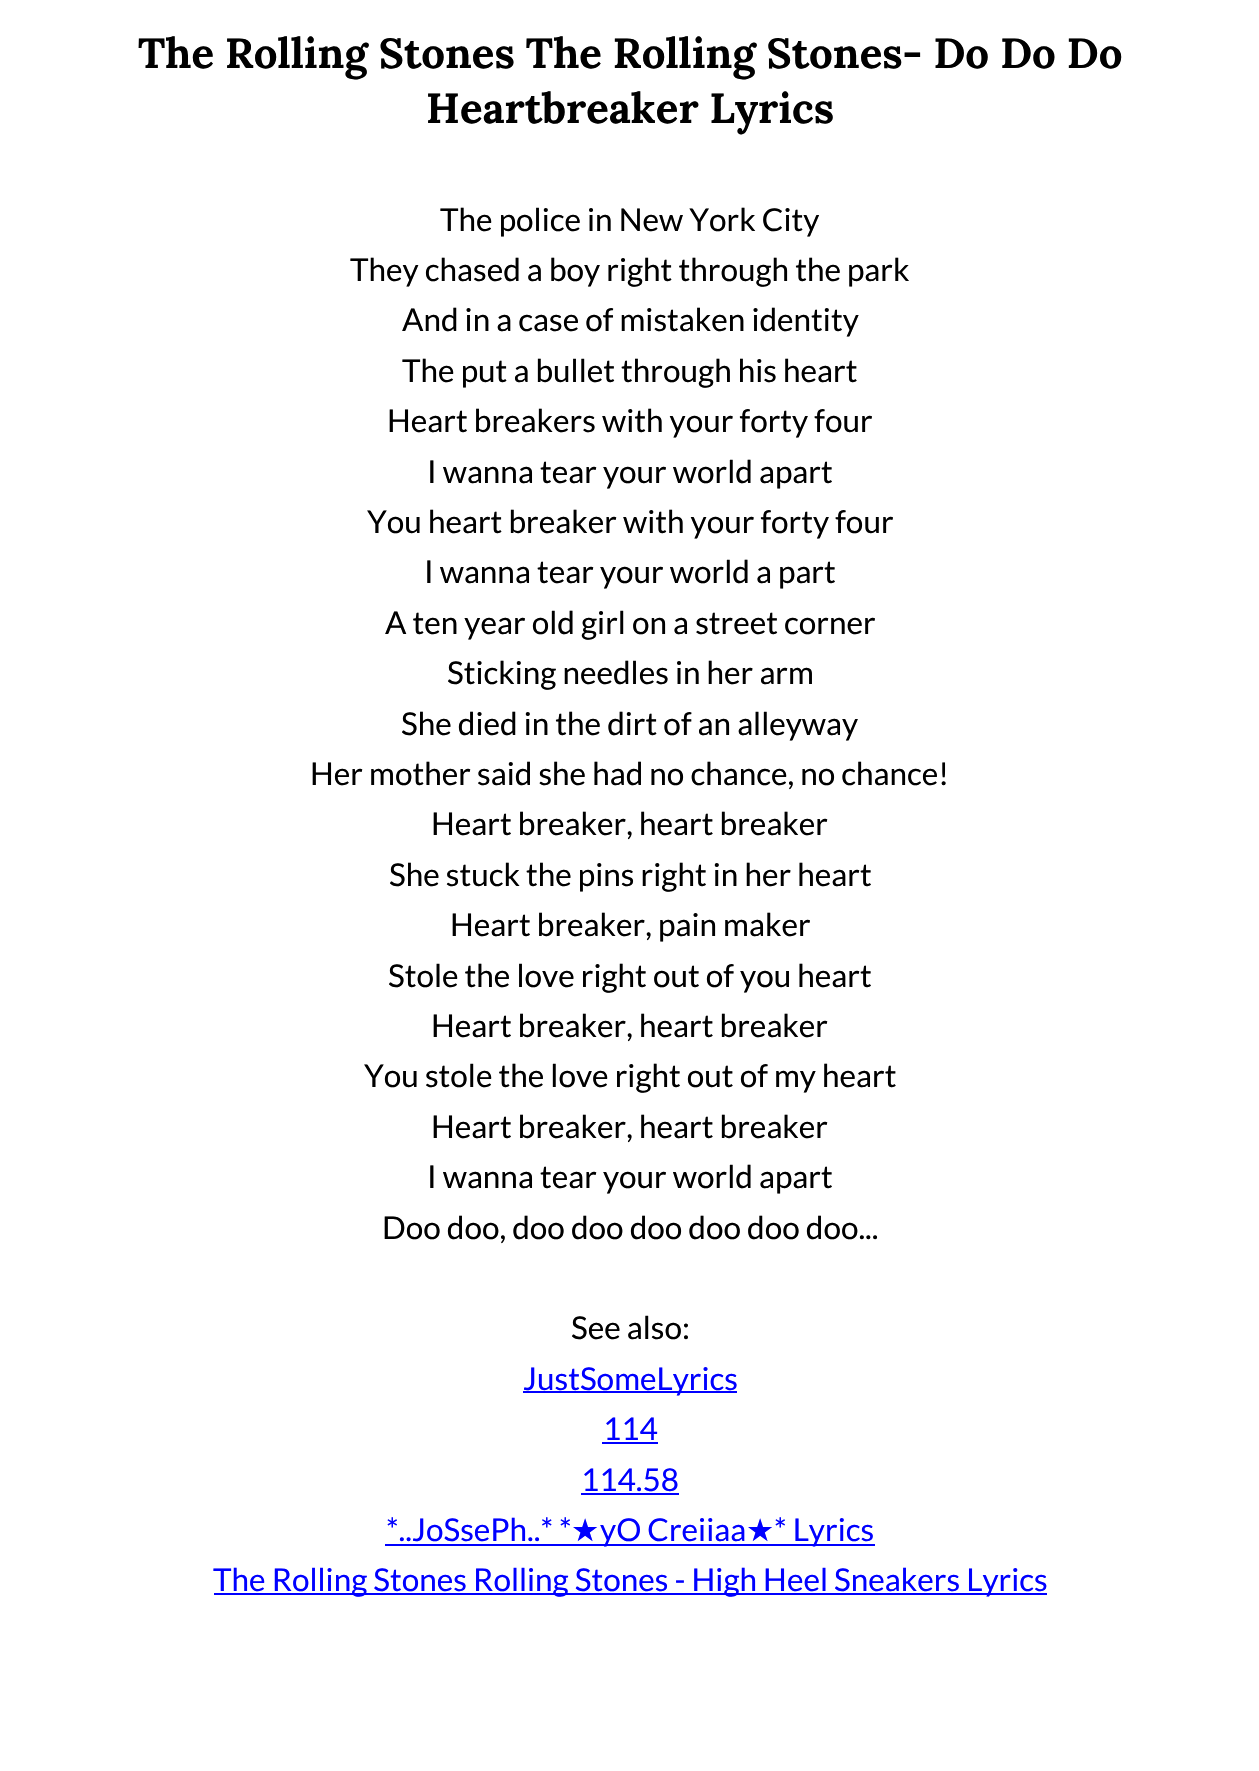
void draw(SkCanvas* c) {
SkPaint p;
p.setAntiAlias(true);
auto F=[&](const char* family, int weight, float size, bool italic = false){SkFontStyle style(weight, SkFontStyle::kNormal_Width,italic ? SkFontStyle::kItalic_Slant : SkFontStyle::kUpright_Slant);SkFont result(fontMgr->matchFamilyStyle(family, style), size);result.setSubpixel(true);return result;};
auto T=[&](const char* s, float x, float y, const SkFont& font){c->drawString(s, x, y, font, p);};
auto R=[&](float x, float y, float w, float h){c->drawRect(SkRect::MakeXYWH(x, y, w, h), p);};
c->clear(0xffffffff);
auto f1 = F("Lora",700,42);
p.setColor(0xff000000);
T("The Rolling Stones The Rolling Stones- Do Do Do",138,68,f1);
T("Heartbreaker Lyrics",426,123,f1);
auto f2 = F("Lato",400,31.5);
T("The police in New York City",440,231,f2);
T("They chased a boy right through the park",350,281,f2);
T("And in a case of mistaken identity",402,331,f2);
T("The put a bullet through his heart",402,382,f2);
T("Heart breakers with your forty four",387,432,f2);
T("I wanna tear your world apart",427,483,f2);
T("You heart breaker with your forty four",367,533,f2);
T("I wanna tear your world a part",424,583,f2);
T("A ten year old girl on a street corner",385,634,f2);
T("Sticking needles in her arm",447,684,f2);
T("She died in the dirt of an alleyway",401,735,f2);
T("Her mother said she had no chance, no chance!",310,785,f2);
T("Heart breaker, heart breaker",431,835,f2);
T("She stuck the pins right in her heart",389,886,f2);
T("Heart breaker, pain maker",450,936,f2);
T("Stole the love right out of you heart",388,987,f2);
T("Heart breaker, heart breaker",431,1037,f2);
T("You stole the love right out of my heart",364,1087,f2);
T("Heart breaker, heart breaker",431,1138,f2);
T("I wanna tear your world apart",427,1188,f2);
T("Doo doo, doo doo doo doo doo doo...",382,1239,f2);
T("See also:",571,1339,f2);
p.setColor(0xff0000ff);
R(523,1391,214,2);
T("JustSomeLyrics",523,1390,f2);
T("114",603,1440,f2);
R(602,1442,56,2);
T("114.58",581,1491,f2);
R(581,1493,98,2);
T("*..JoSsePh..* *",386,1541,f2);
auto f3 = F("DejaVu Sans",400,31.5);
T("★",571,1541,f3);
R(385,1544,490,2);
T("yO Creiiaa",600,1541,f2);
T("★",746,1541,f3);
T("* Lyrics",774,1541,f2);
R(214,1593,833,2);
T("The Rolling Stones Rolling Stones - High Heel Sneakers Lyrics",213,1591,f2);
}
